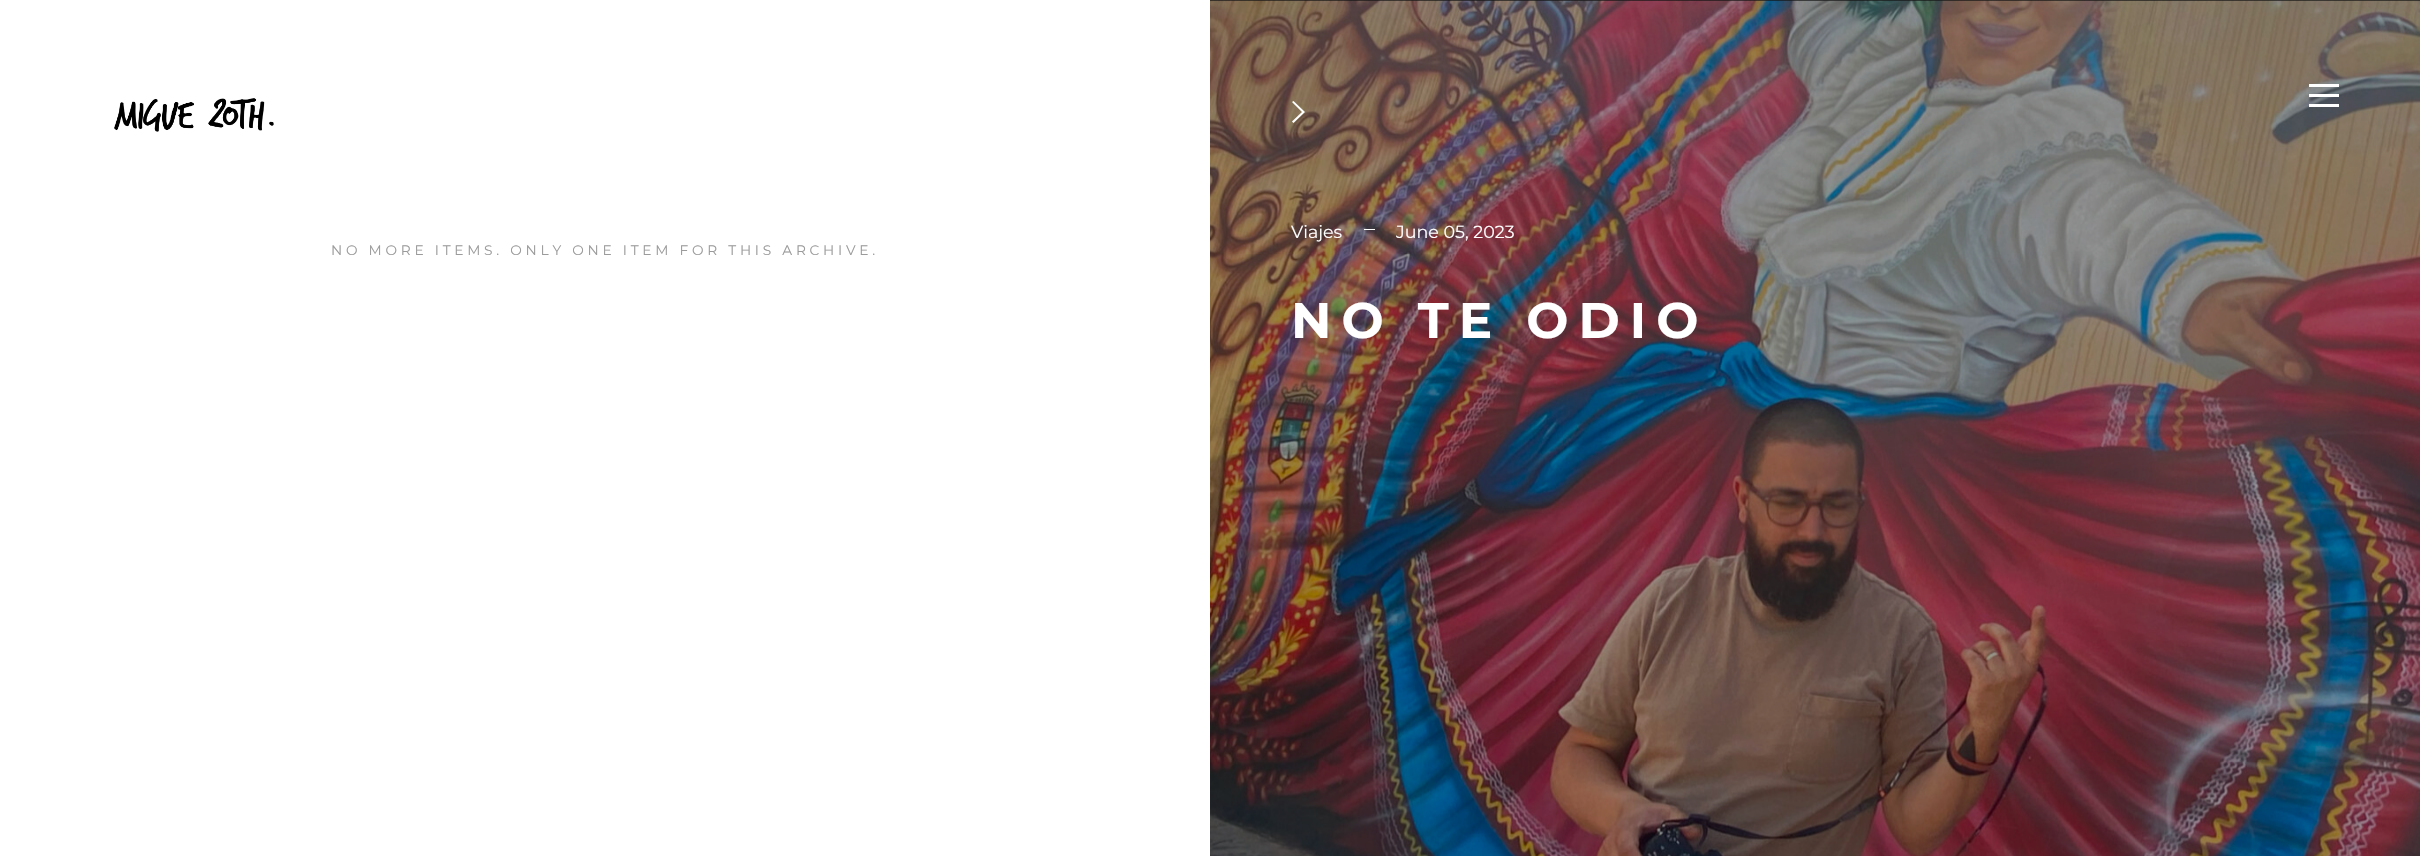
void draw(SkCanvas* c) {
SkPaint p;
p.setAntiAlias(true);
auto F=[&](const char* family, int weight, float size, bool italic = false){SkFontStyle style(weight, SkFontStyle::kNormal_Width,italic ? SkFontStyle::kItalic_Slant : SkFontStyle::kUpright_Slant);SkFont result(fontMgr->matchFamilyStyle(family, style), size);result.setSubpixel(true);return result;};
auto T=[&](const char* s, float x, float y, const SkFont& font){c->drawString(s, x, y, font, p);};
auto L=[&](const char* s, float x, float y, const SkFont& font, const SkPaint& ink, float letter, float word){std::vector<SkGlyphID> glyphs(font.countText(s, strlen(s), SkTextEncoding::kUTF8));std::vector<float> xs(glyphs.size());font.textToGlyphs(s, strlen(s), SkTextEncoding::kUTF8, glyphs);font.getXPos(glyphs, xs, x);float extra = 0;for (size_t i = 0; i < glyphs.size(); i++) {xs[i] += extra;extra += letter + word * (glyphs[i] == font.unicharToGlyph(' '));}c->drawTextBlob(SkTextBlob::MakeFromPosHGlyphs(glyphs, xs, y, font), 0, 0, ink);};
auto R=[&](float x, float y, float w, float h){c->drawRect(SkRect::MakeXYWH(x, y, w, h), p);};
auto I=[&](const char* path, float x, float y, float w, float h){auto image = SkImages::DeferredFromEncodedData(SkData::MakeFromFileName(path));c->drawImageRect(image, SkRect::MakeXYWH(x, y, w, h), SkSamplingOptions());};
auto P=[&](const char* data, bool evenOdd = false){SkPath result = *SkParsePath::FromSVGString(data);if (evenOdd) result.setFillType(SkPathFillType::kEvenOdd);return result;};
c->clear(0xffffffff);
I("1.png",114,98,160,34);
auto f1 = F("Montserrat",400,13.75);
p.setColor(0xff9b9b9b);
L("NO MORE ITEMS. ONLY ONE ITEM FOR THIS ARCHIVE.",331,255,f1,p,3.75,0);
p.setColor(0xff141414);
R(1210,0,1210,1);
I("2.png",1210,0,1210,856);
p.setColor(0xffffffff);
R(2309,84,30,3);
R(2309,94,30,3);
R(2309,104,30,3);
c->drawPath(P("M1292 102l10 10l-10 9.5l1.5 1.5l11.5-11l-11.5-11z"),p);
auto f2 = F("Montserrat",400,17.5);
T("Viajes",1291,238,f2);
R(1364,229,11,1);
T("June 05, 2023",1396,238,f2);
auto f3 = F("Montserrat",700,50);
L("NO TE ODIO",1291,338,f3,p,10,0);
}
